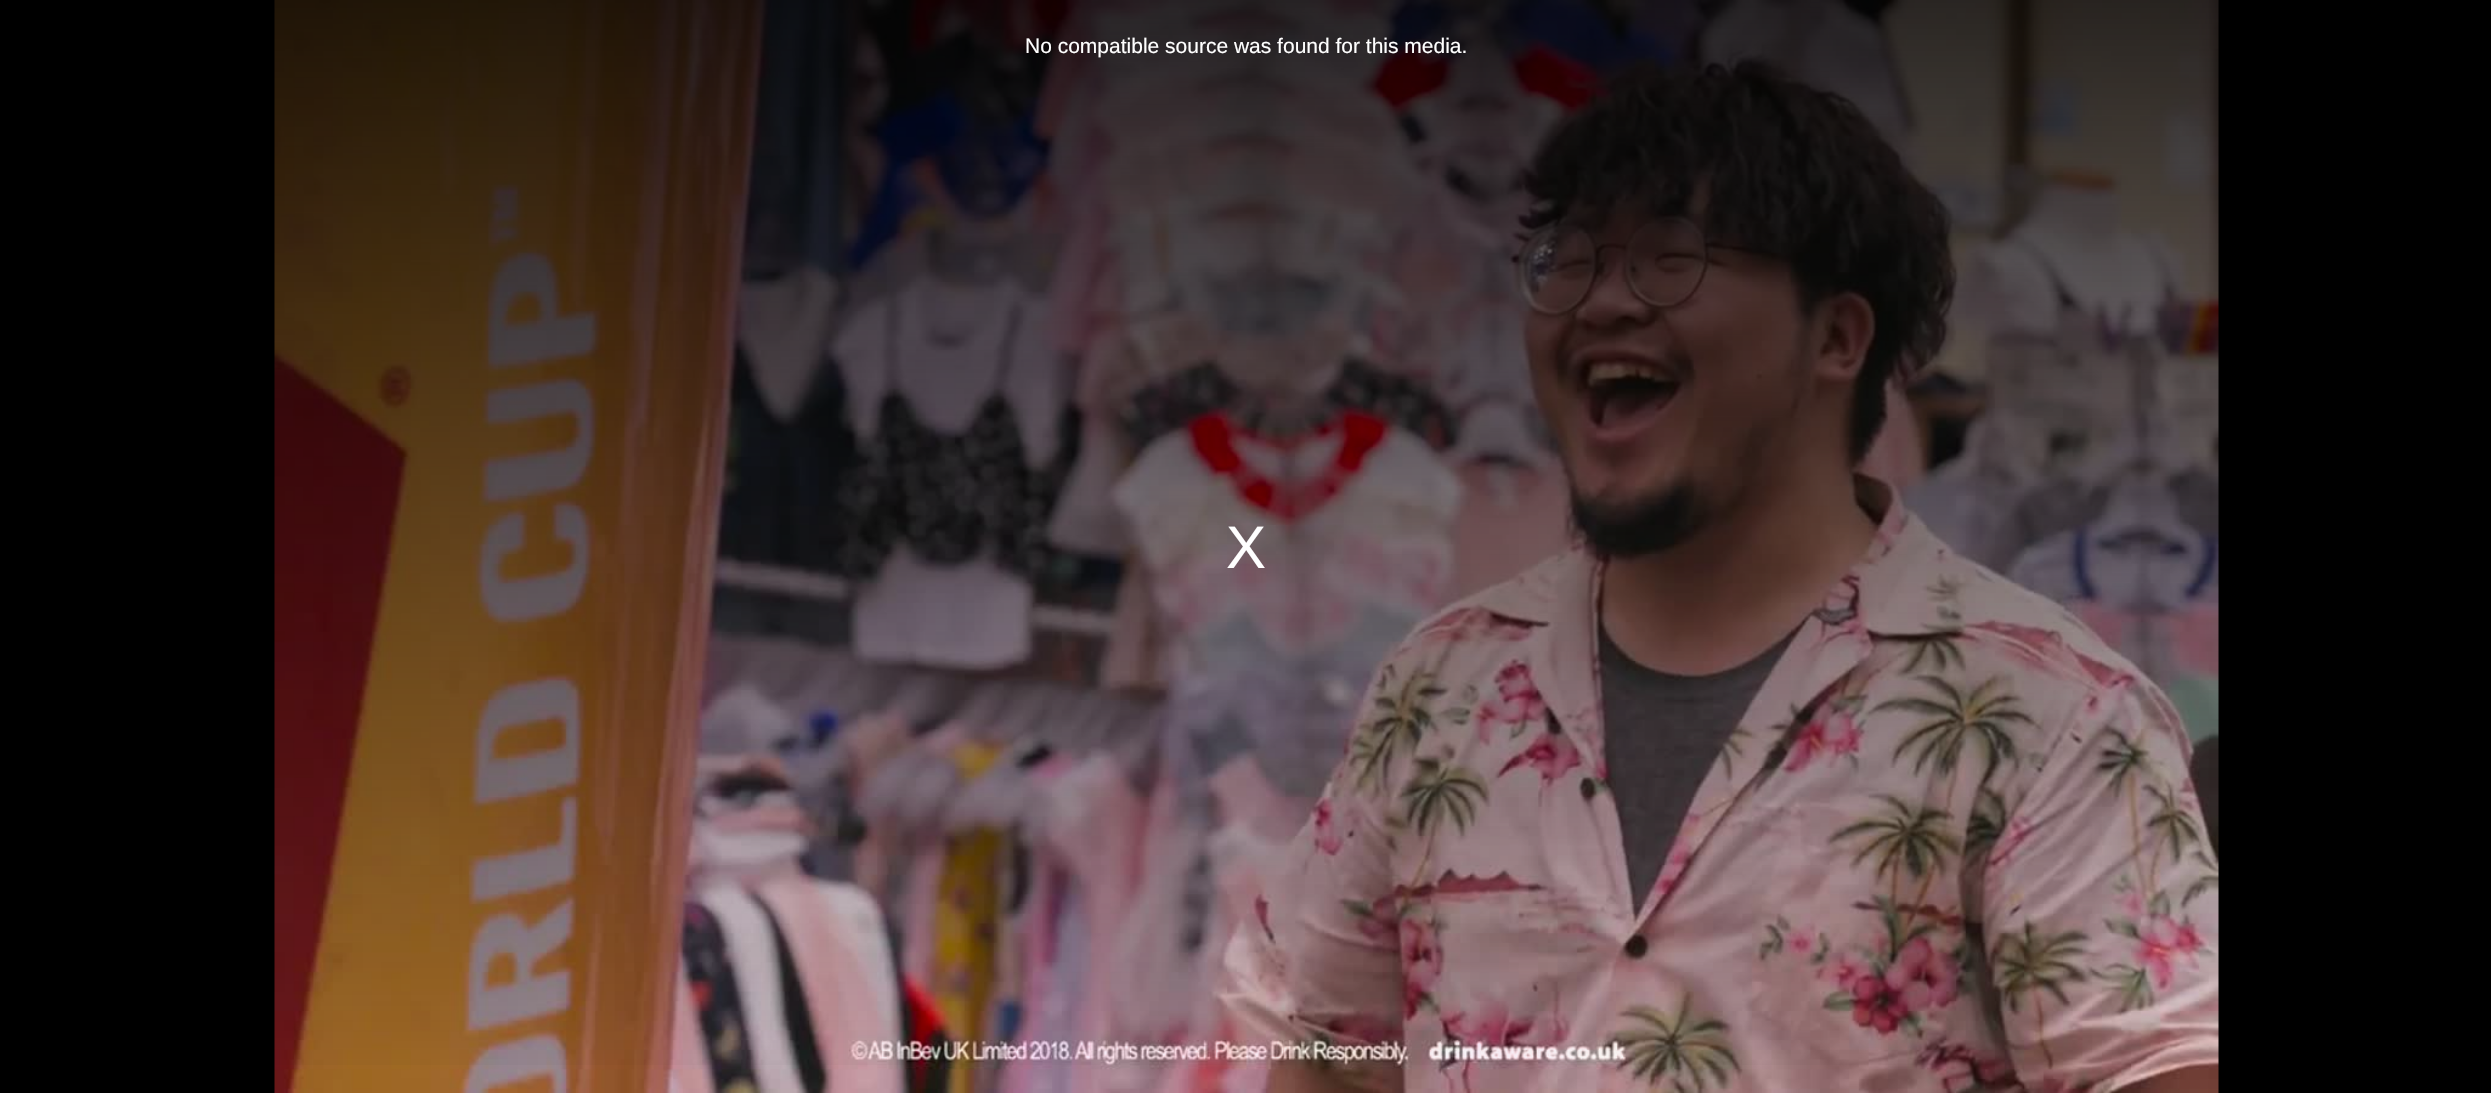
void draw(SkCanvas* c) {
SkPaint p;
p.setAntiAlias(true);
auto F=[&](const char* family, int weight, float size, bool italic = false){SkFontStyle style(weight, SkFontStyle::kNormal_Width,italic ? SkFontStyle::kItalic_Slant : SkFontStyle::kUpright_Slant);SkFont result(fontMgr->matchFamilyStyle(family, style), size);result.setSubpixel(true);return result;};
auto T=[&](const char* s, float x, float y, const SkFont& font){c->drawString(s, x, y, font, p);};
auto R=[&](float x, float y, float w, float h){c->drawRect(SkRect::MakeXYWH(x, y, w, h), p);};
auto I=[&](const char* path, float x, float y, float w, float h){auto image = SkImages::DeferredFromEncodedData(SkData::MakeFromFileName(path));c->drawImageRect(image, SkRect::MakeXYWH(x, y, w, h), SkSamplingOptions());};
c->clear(0xff000000);
I("1.png",274,0,1945,1093);
{
const SkColor colors[] = {0xcc000000,0x00000000};
const float stops[] = {0,1};
const SkPoint ends[] = {{1246,0}, {1246,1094}};
p.setShader(SkGradientShader::MakeLinear(ends, colors, stops, 2, SkTileMode::kClamp));
p.setAlpha(255);
}
R(274,0,1945,1065);
auto f1 = F("Liberation Sans",400,21);
p.setShader(nullptr);
p.setColor(0xffffffff);
T("No compatible source was found for this media.",1025,53,f1);
auto f2 = F("Liberation Sans",400,60);
T("X",1226,568,f2);
}
